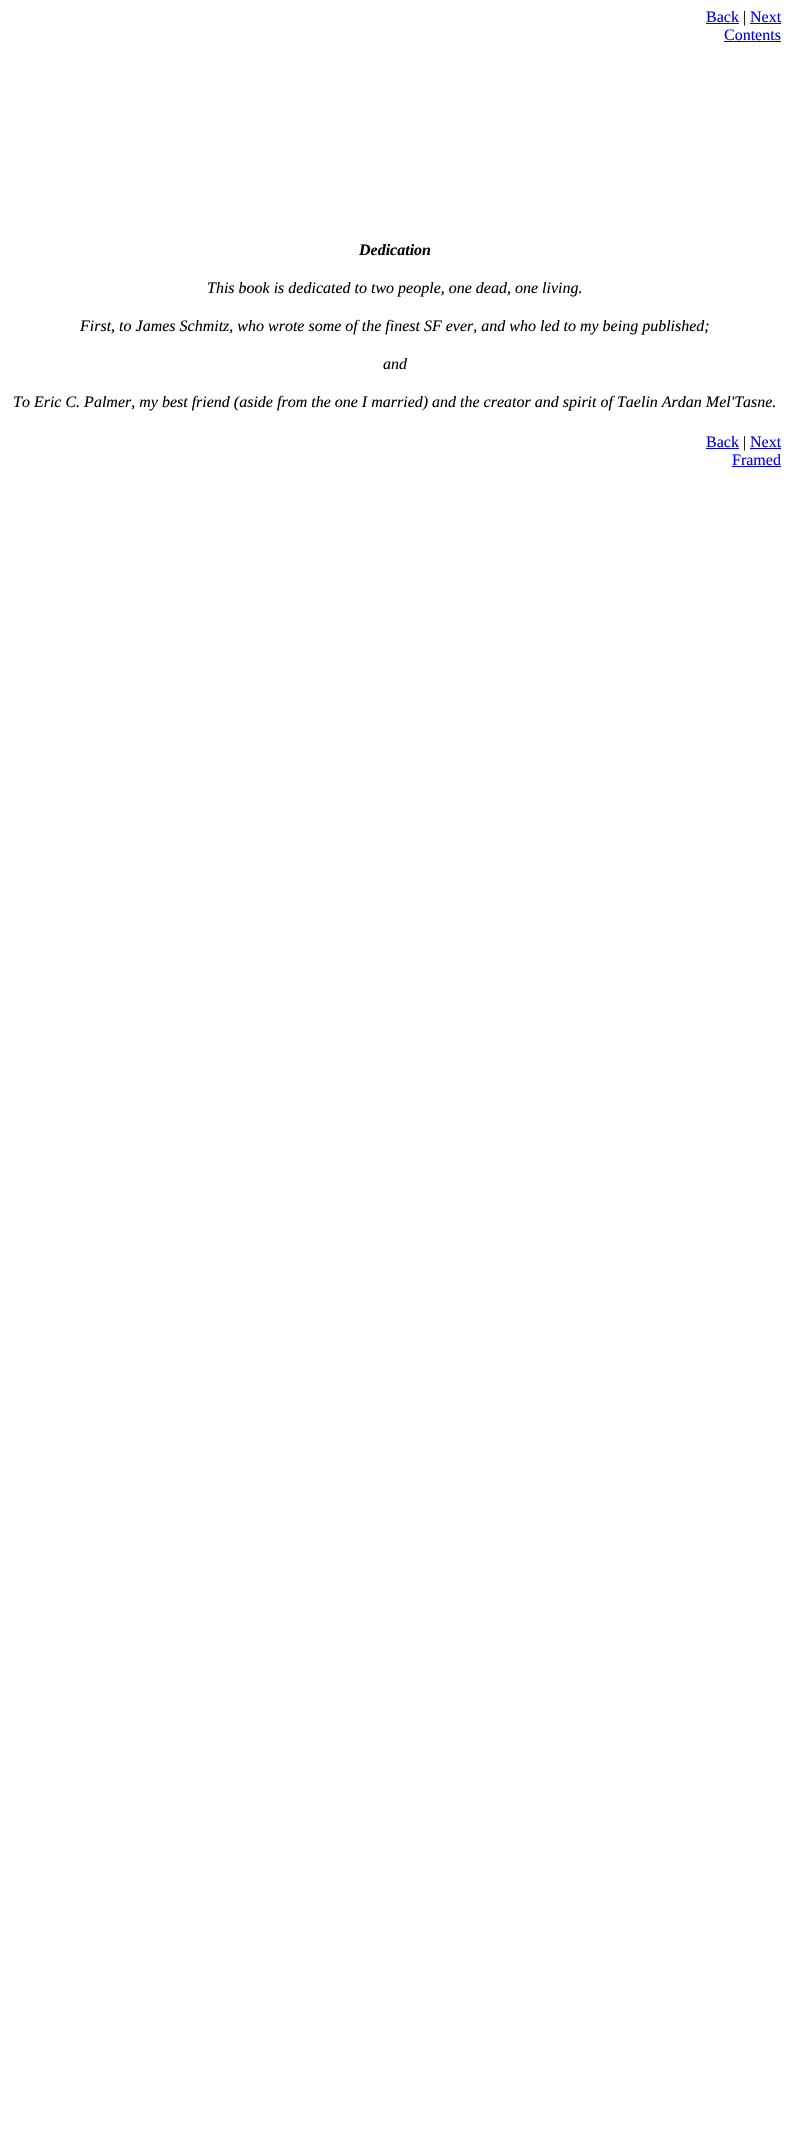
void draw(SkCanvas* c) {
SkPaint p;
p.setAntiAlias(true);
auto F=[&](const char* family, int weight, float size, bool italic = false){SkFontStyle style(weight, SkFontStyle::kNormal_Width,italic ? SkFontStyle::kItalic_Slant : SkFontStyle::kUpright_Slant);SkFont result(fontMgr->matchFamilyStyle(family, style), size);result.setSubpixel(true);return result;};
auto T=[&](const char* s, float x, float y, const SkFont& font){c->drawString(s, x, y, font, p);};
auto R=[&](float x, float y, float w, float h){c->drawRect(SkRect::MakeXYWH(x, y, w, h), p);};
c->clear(0xffffffff);
auto f1 = F("Liberation Serif",400,16);
p.setColor(0xff0000ee);
T("Back",706,22,f1);
R(706,23,33,1);
p.setColor(0xff000000);
T("|",743,22,f1);
p.setColor(0xff0000ee);
T("Next",750,22,f1);
R(750,23,31,1);
T("Contents",724,40,f1);
R(724,41,57,1);
auto f2 = F("Liberation Serif",700,16,true);
p.setColor(0xff000000);
T("Dedication",359,255,f2);
auto f3 = F("Liberation Serif",400,16,true);
T("This book is dedicated to two people, one dead, one living.",207,293,f3);
T("First, to James Schmitz, who wrote some of the finest SF ever, and who led to my being published;",80,331,f3);
T("and",383,369,f3);
T("To Eric C. Palmer, my best friend (aside from the one I married) and the creator and spirit of Taelin Ardan Mel'Tasne.",13,407,f3);
p.setColor(0xff0000ee);
T("Back",706,447,f1);
R(706,448,33,1);
p.setColor(0xff000000);
T("|",743,447,f1);
p.setColor(0xff0000ee);
T("Next",750,447,f1);
R(750,448,31,1);
T("Framed",732,465,f1);
R(732,466,49,1);
}
